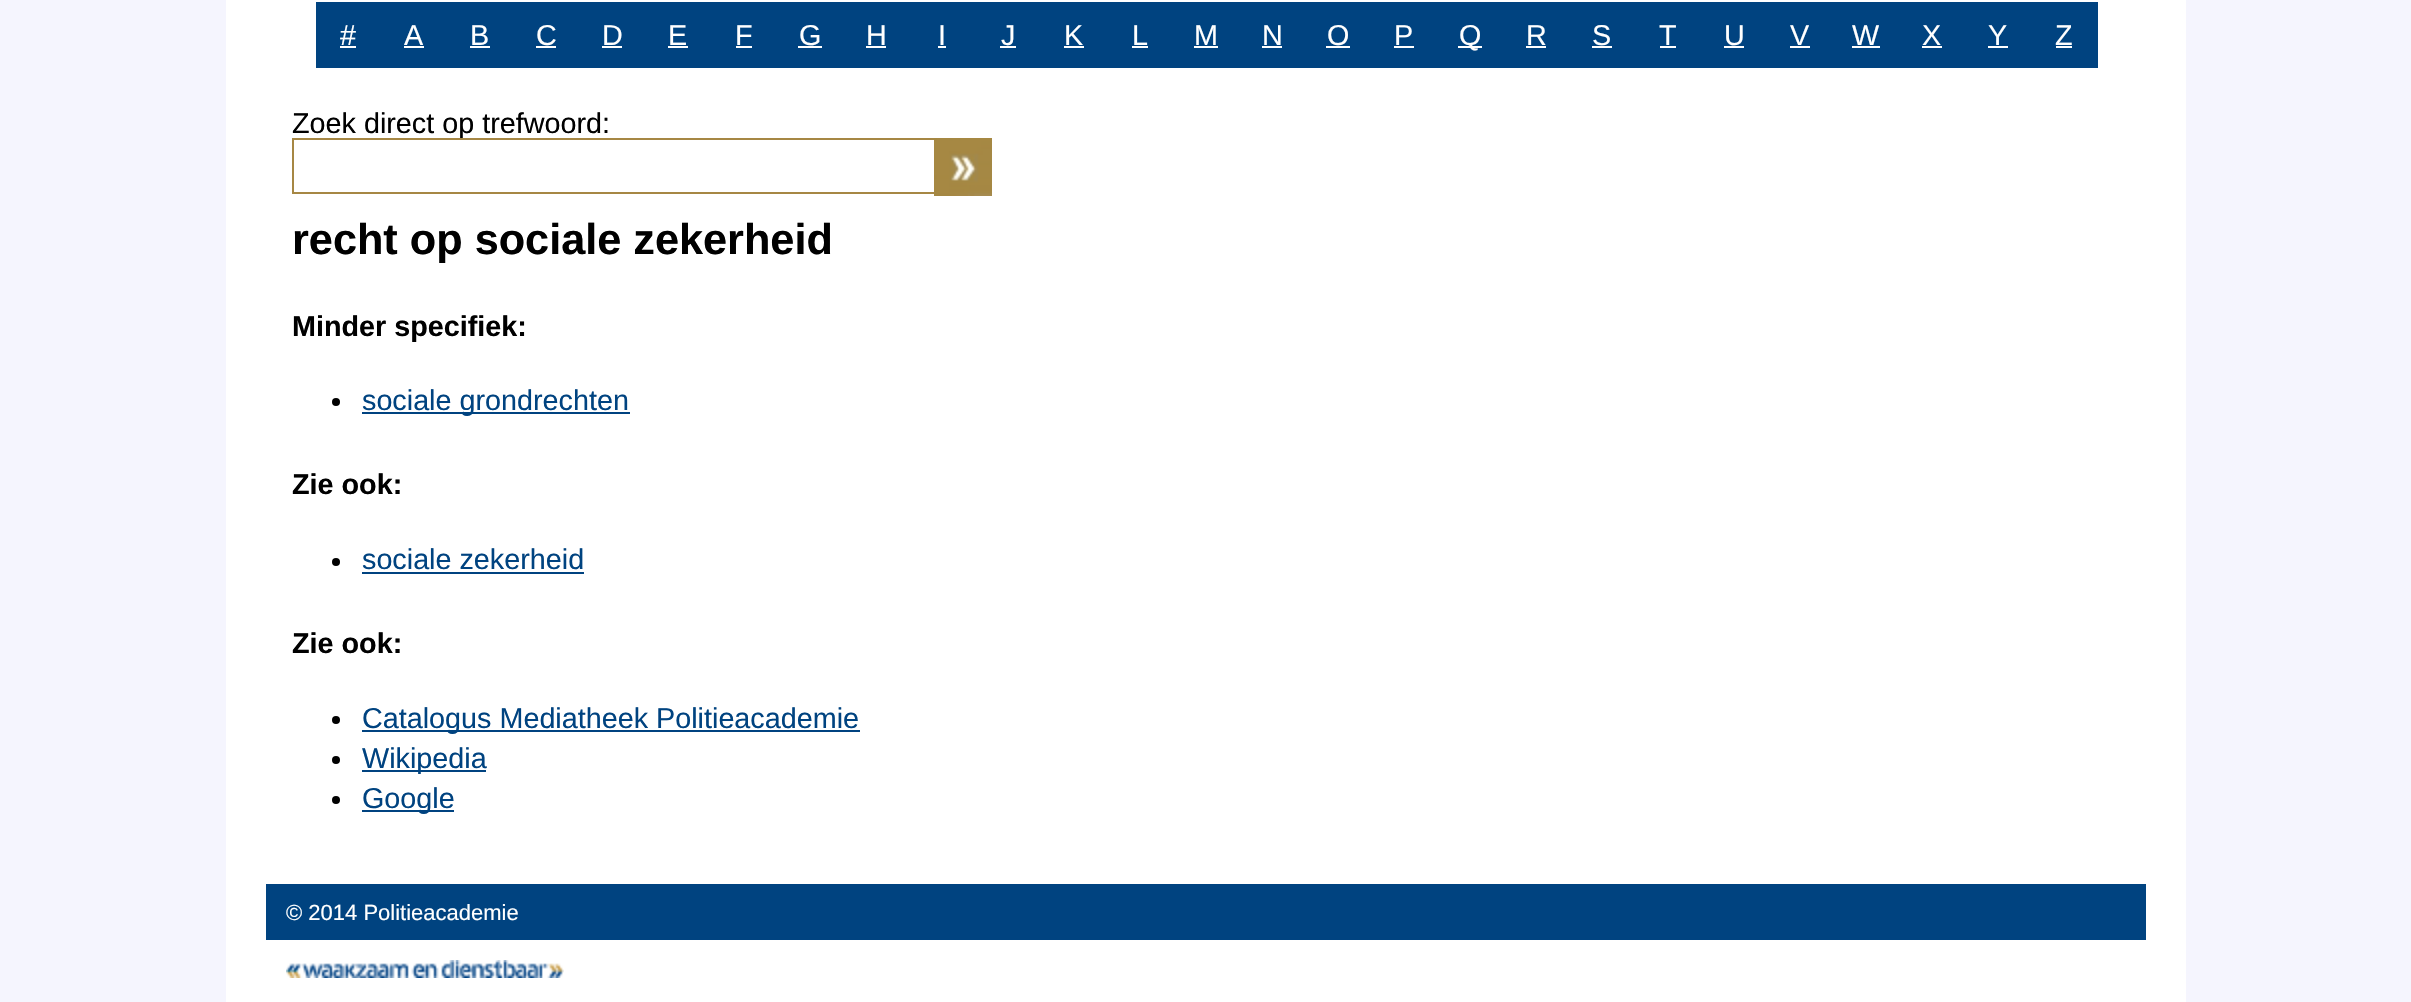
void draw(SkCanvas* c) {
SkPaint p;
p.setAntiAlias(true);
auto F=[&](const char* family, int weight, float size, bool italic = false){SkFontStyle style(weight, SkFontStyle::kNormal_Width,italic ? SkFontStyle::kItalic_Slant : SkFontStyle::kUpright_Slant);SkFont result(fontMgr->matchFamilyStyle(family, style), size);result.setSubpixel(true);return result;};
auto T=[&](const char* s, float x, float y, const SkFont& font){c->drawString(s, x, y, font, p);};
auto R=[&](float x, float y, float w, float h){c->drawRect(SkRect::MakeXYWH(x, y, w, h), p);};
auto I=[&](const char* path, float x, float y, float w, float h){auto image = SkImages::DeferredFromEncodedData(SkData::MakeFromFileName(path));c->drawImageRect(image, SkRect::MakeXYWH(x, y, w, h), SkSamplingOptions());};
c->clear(0xfff5f5fe);
p.setColor(0xffffffff);
R(226,0,1960,1002);
p.setColor(0xff004380);
R(316,2,1782,66);
auto f1 = F("Liberation Sans",400,28.75);
p.setColor(0xffffffff);
T("#",340,45,f1);
R(340,46,16,2);
T("A",404,45,f1);
R(404,46,20,2);
T("B",470,45,f1);
R(470,46,20,2);
T("C",536,45,f1);
R(536,46,20,2);
T("D",602,45,f1);
R(602,46,20,2);
T("E",668,45,f1);
R(668,46,20,2);
T("F",735,45,f1);
R(736,46,16,2);
T("G",799,45,f1);
R(798,46,24,2);
T("H",866,45,f1);
R(866,46,20,2);
T("I",938,45,f1);
R(938,46,8,2);
T("J",1001,45,f1);
R(1000,46,16,2);
T("K",1064,45,f1);
R(1064,46,20,2);
T("L",1132,45,f1);
R(1132,46,16,2);
T("M",1194,45,f1);
R(1194,46,24,2);
T("N",1262,45,f1);
R(1262,46,20,2);
T("O",1327,45,f1);
R(1326,46,24,2);
T("P",1394,45,f1);
R(1394,46,20,2);
R(1458,46,24,2);
T("Q",1459,45,f1);
T("R",1526,45,f1);
R(1526,46,20,2);
T("S",1592,45,f1);
R(1592,46,20,2);
T("T",1659,45,f1);
R(1660,46,16,2);
T("U",1724,45,f1);
R(1724,46,20,2);
T("V",1790,45,f1);
R(1790,46,20,2);
T("W",1852,45,f1);
R(1852,46,28,2);
T("X",1922,45,f1);
R(1922,46,20,2);
T("Y",1988,45,f1);
R(1988,46,20,2);
T("Z",2055,45,f1);
R(2056,46,16,2);
p.setColor(0xff000000);
T("Zoek direct op trefwoord:",292,133,f1);
p.setColor(0xffa68744);
R(292,138,642,2);
R(292,192,642,2);
R(292,138,2,56);
I("1.png",934,138,58,58);
auto f2 = F("Liberation Sans",700,43.25);
p.setColor(0xff000000);
T("recht op sociale zekerheid",292,254,f2);
auto f3 = F("Liberation Sans",700,28.75);
T("Minder specifiek:",292,336,f3);
c->drawCircle(336,402,4,p);
p.setColor(0xff004380);
R(362,412,268,2);
T("sociale grondrechten",362,410,f1);
p.setColor(0xff000000);
T("Zie ook:",292,494,f3);
c->drawCircle(336,562,4,p);
p.setColor(0xff004380);
T("sociale zekerheid",362,569,f1);
R(362,572,222,2);
p.setColor(0xff000000);
T("Zie ook:",292,653,f3);
c->drawCircle(336,720,4,p);
p.setColor(0xff004380);
R(362,730,498,2);
T("Catalogus Mediatheek Politieacademie",362,728,f1);
p.setColor(0xff000000);
c->drawCircle(336,760,4,p);
p.setColor(0xff004380);
R(362,770,124,2);
T("Wikipedia",362,768,f1);
p.setColor(0xff000000);
c->drawCircle(336,800,4,p);
p.setColor(0xff004380);
R(362,810,92,2);
T("Google",362,808,f1);
R(266,884,1880,56);
auto f4 = F("Liberation Sans",400,22);
p.setColor(0xffffffff);
T("© 2014 Politieacademie",286,920,f4);
I("2.png",286,960,278,18);
}
